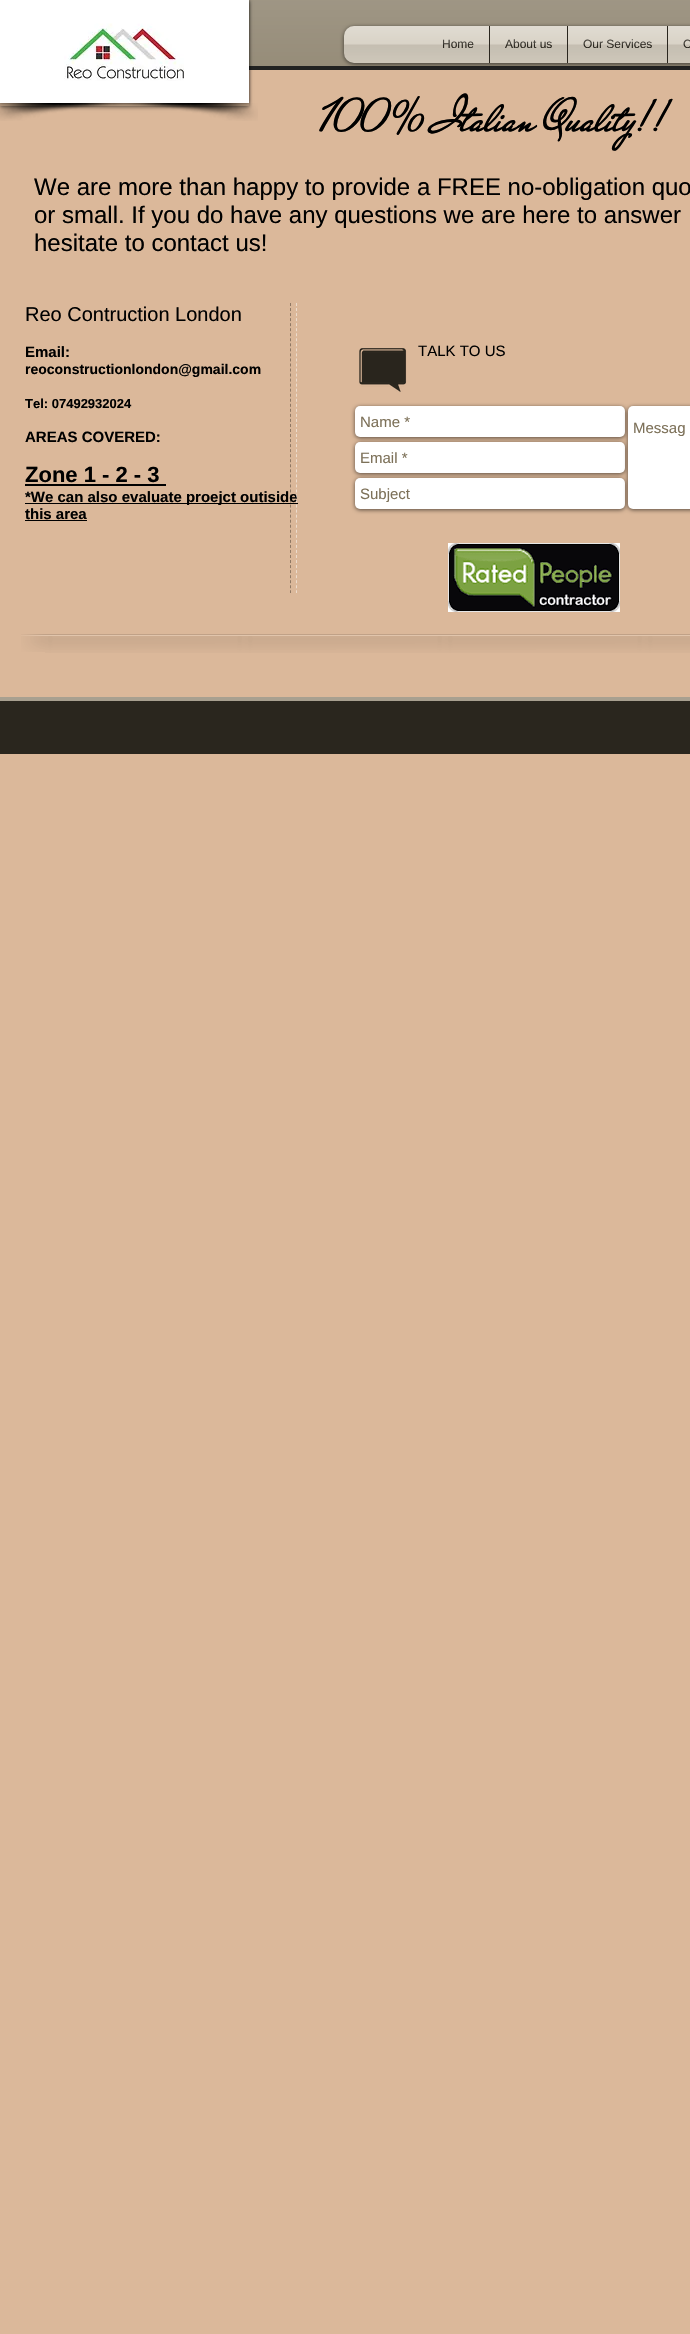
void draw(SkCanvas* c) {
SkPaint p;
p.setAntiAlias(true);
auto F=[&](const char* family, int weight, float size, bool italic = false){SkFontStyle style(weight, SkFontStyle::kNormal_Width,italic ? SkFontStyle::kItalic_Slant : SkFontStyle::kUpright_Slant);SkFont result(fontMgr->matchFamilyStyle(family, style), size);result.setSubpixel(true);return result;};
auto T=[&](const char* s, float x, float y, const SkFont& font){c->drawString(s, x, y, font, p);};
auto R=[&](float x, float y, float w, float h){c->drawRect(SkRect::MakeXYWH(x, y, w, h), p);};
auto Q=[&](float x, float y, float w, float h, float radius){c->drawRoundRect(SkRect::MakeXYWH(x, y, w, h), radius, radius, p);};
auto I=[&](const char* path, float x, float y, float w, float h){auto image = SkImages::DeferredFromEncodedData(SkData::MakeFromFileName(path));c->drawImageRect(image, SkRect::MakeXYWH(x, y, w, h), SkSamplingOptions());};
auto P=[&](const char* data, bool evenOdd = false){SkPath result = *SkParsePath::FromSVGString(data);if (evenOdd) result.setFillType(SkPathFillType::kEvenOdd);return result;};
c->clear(0xffdbb89a);
p.setColor(0xff7d7159);
R(249,0,441,66);
p.setColor(0xff222222);
R(249,66,441,4);
I("4.png",249,0,441,66);
c->save();
c->clipPath(P("M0 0h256v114h-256zm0 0h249v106h-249z",true),true);
p.setColor(0x99000000);
p.setMaskFilter(SkMaskFilter::MakeBlur(kNormal_SkBlurStyle, 2));
c->drawRect(SkRect::MakeXYWH(0,1,249,106),p);
p.setMaskFilter(nullptr);
c->restore();
p.setColor(0x332a261e);
R(0,103,249,3);
p.setColor(0x80000000);
p.setMaskFilter(SkMaskFilter::MakeBlur(kNormal_SkBlurStyle, 1.5));
c->drawRect(SkRect::MakeXYWH(0,0,249,103),p);
p.setMaskFilter(nullptr);
p.setColor(0xffffffff);
R(0,0,249,103);
I("1.png",64,23,120,58);
I("2.png",0,103,140,18);
I("3.png",113,103,145,18);
p.setColor(0x99000000);
p.setMaskFilter(SkMaskFilter::MakeBlur(kNormal_SkBlurStyle, 2));
c->drawRoundRect(SkRect::MakeXYWH(344,27,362,37),10,10,p);
p.setMaskFilter(nullptr);
p.setColor(0xffd4cdbf);
Q(344,26,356,37,10);
I("5.png",344,26,83,37);
auto f1 = F("Liberation Sans",400,12);
p.setColor(0xff2a261e);
T("Home",442,48,f1);
I("6.png",427,26,62,37);
R(489,26,1,37);
T("About us",505,48,f1);
I("7.png",490,26,77,37);
R(567,26,1,37);
T("Our Services",583,48,f1);
I("8.png",568,26,99,37);
R(667,26,1,37);
T("O",683,48,f1);
I("9.png",668,26,22,37);
auto f2 = F("Mr De Haviland",700,48);
p.setColor(0xff000000);
T("100% Italian Quality!!",321,131,f2);
auto f3 = F("Liberation Sans",400,24);
T("We are more than happy to provide a FREE no-obligation quo",34,195,f3);
T("or small. If you do have any questions we are here to answer",34,223,f3);
T("hesitate to contact us!",34,251,f3);
R(25,503,273,1);
auto f4 = F("Liberation Sans",700,15);
T("*We can also evaluate proejct outiside",25,502,f4);
p.setStroke(true);
p.setStrokeWidth(1);
p.setColor(0x80ffffff);
p.setPathEffect(SkDashPathEffect::Make({{3,2.04f}}, 0));
c->drawPath(P("M296.5 303v290"),p);
p.setPathEffect(nullptr);
p.setColor(0x59000000);
p.setPathEffect(SkDashPathEffect::Make({{3,2.04f}}, 0));
c->drawPath(P("M290.5 303v290"),p);
p.setPathEffect(nullptr);
auto f5 = F("Liberation Sans",400,20);
p.setStroke(false);
p.setColor(0xff000000);
T("Reo Contruction London",25,321,f5);
T("Email:",25,357,f4);
auto f6 = F("Liberation Sans",700,14);
T("reoconstructionlondon@gmail.com",25,374,f6);
auto f7 = F("Liberation Sans",700,13);
T("Tel: 07492932024",25,408,f7);
T("AREAS COVERED:",25,442,f4);
auto f8 = F("Liberation Sans",700,22);
T("Zone 1 - 2 - 3",25,482,f8);
R(25,484,141,2);
T("this area",25,519,f4);
R(25,520,62,1);
I("10.png",359,348,48,44);
auto f9 = F("Liberation Sans",400,15);
T("TALK TO US",418,356,f9);
p.setColor(0x99000000);
p.setMaskFilter(SkMaskFilter::MakeBlur(kNormal_SkBlurStyle, 2));
c->drawRoundRect(SkRect::MakeXYWH(355,407,270,31),5,5,p);
p.setMaskFilter(nullptr);
p.setColor(0xffffffff);
Q(355,406,270,31,5);
p.setColor(0xff7d7159);
T("Name *",360,427,f9);
p.setColor(0x99000000);
p.setMaskFilter(SkMaskFilter::MakeBlur(kNormal_SkBlurStyle, 2));
c->drawRoundRect(SkRect::MakeXYWH(355,443,270,31),5,5,p);
p.setMaskFilter(nullptr);
p.setColor(0xffffffff);
Q(355,442,270,31,5);
p.setColor(0x99000000);
p.setMaskFilter(SkMaskFilter::MakeBlur(kNormal_SkBlurStyle, 2));
c->drawRoundRect(SkRect::MakeXYWH(355,479,270,31),5,5,p);
p.setMaskFilter(nullptr);
p.setColor(0xffffffff);
Q(355,478,270,31,5);
p.setColor(0x99000000);
p.setMaskFilter(SkMaskFilter::MakeBlur(kNormal_SkBlurStyle, 2));
c->drawRoundRect(SkRect::MakeXYWH(628,407,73,103),5,5,p);
p.setMaskFilter(nullptr);
p.setColor(0xffffffff);
Q(628,406,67,103,5);
p.setColor(0xff7d7159);
T("Messag",633,433,f9);
T("Email *",360,463,f9);
T("Subject",360,499,f9);
I("11.png",448,543,172,69);
I("12.png",21,634,24,18);
I("13.png",45,634,645,19);
p.setColor(0xff2a261e);
R(0,701,690,53);
p.setColor(0xffa8a090);
R(0,697,690,4);
}
